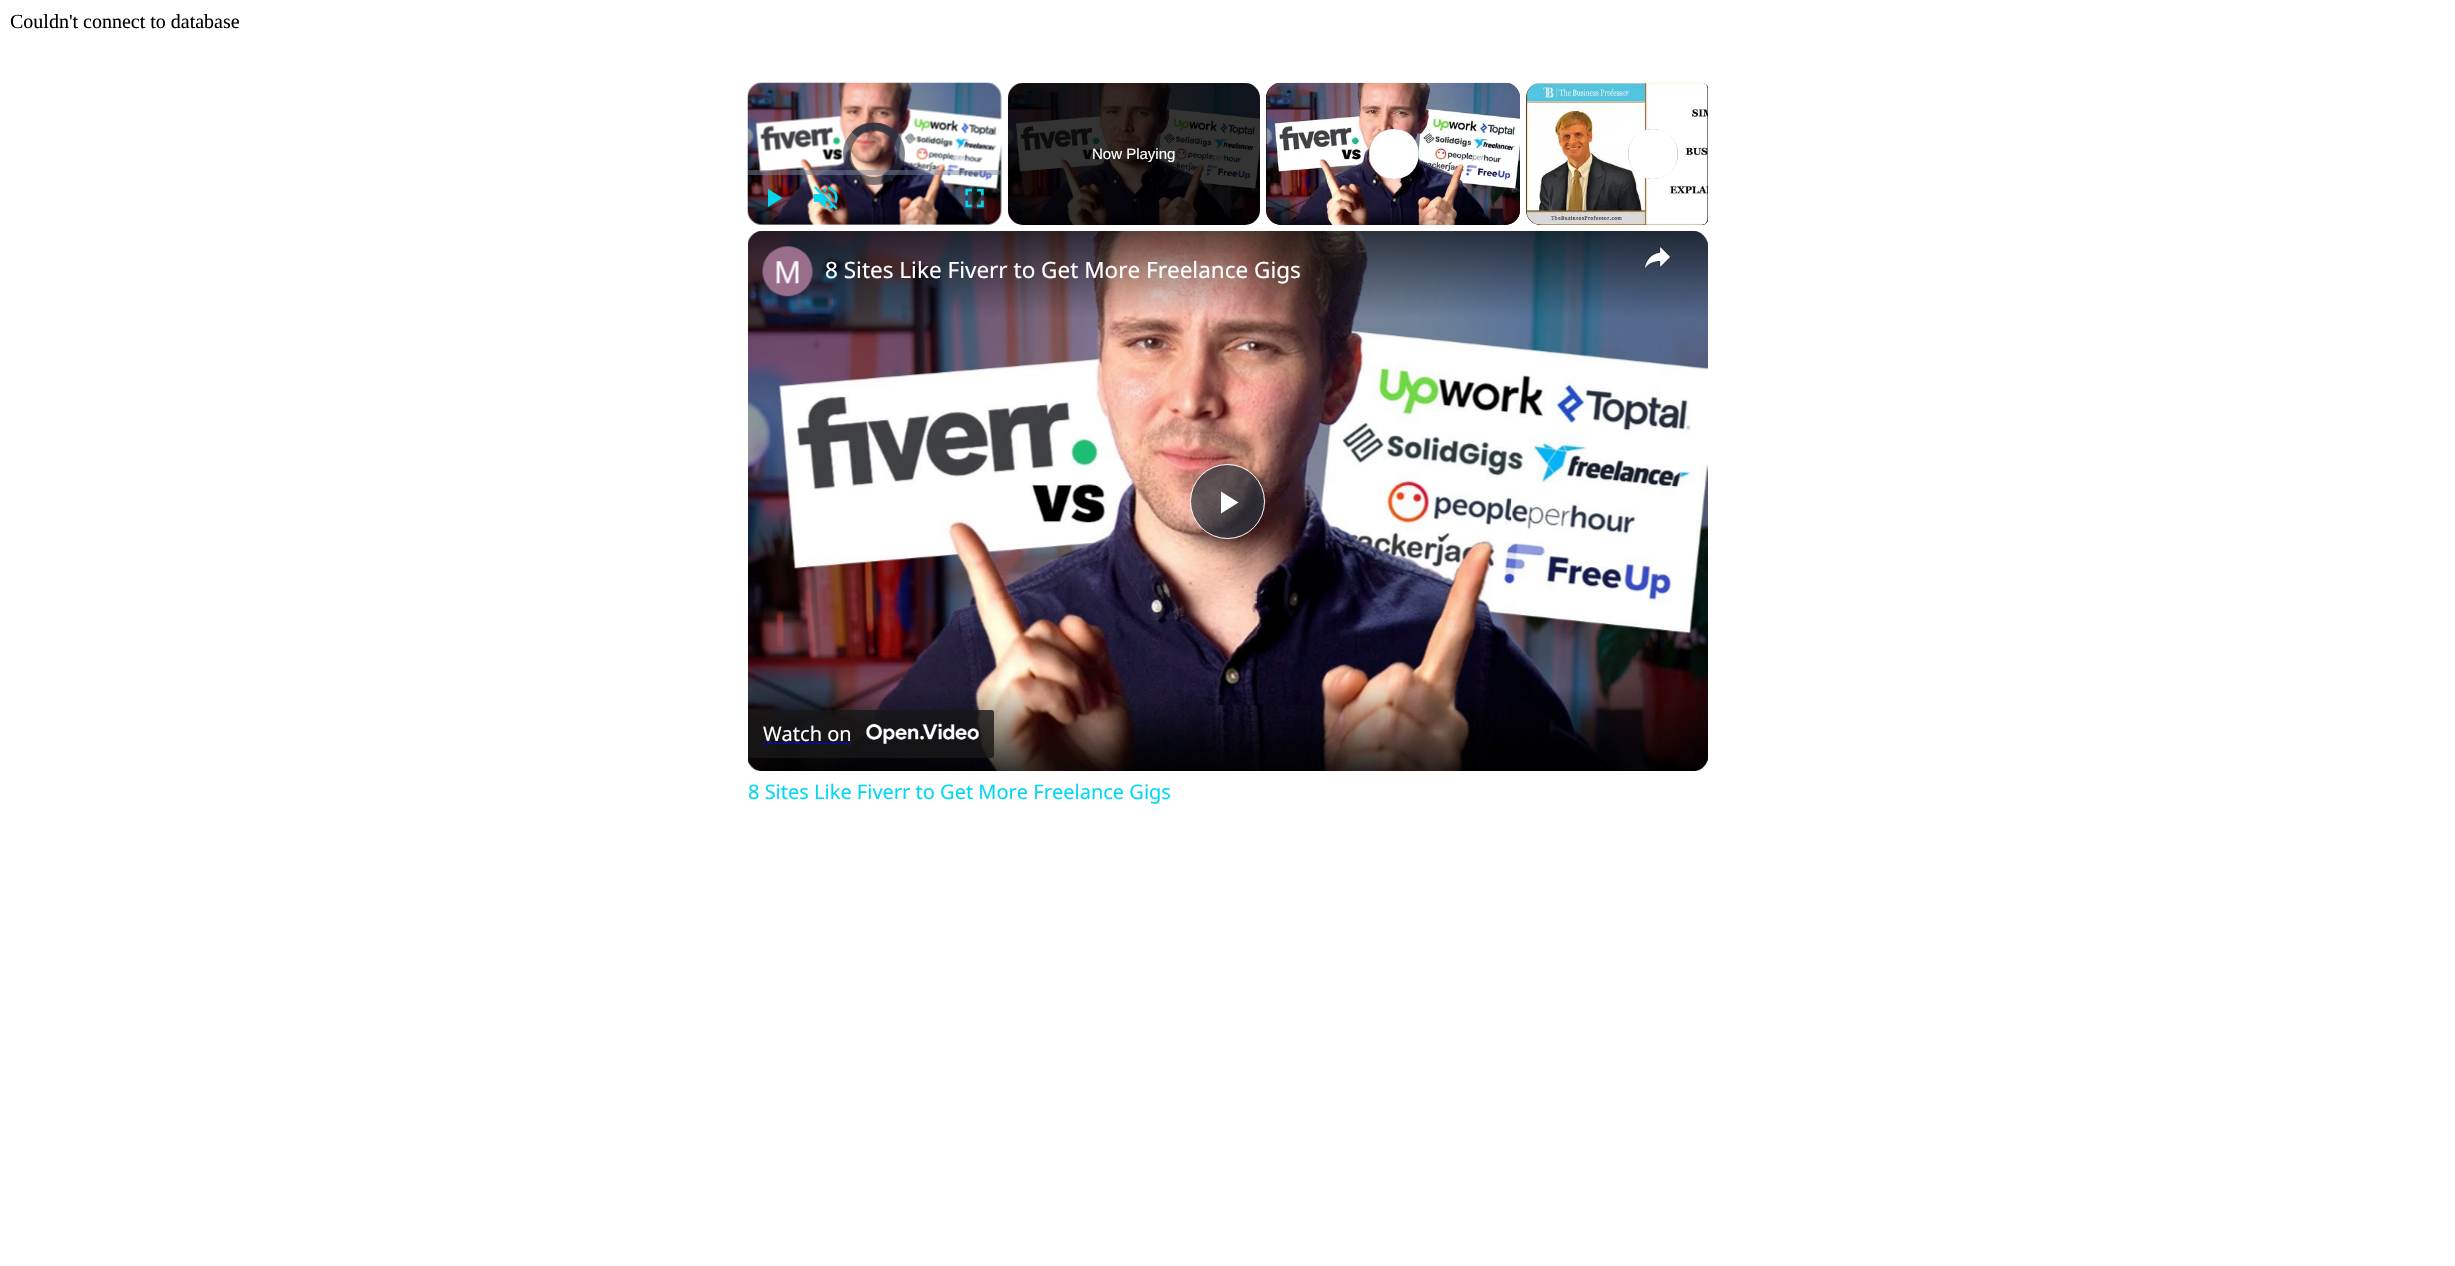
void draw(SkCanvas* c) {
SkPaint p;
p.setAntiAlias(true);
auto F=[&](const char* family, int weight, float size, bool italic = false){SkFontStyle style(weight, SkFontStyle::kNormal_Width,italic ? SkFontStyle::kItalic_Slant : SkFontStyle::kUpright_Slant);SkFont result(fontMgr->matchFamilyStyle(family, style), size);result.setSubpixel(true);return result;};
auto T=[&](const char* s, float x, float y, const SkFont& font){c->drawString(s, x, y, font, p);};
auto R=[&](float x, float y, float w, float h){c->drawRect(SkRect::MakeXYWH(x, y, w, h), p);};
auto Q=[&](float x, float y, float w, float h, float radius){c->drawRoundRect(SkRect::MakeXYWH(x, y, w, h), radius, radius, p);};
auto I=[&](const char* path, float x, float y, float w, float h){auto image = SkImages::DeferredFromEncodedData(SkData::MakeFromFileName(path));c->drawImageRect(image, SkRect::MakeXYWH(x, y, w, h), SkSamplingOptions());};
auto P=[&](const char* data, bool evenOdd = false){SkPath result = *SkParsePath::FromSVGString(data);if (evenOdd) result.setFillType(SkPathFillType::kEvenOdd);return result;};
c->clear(0xffffffff);
auto f1 = F("Liberation Serif",400,20);
p.setColor(0xff000000);
T("Couldn't connect to database",10,28,f1);
I("1.png",747,82,255,143);
p.setStroke(true);
p.setStrokeWidth(8);
p.setColor(0x962b333f);
c->drawCircle(874,154,27,p);
p.setStrokeWidth(7.5);
c->drawPath(P("M854.5 134.5c10.5-11 28-11 38.5 0"),p);
c->drawPath(P("M854.5 134.5c10.5-11 28-11 38.5 0"),p);
p.setStroke(false);
p.setColor(0x8073859f);
R(748,170,253,5);
p.setColor(0xff03d8f3);
c->drawPath(P("M768 189v18l14.5-9z"),p);
I("2.png",813,186,25,24);
I("3.png",965,188,19,20);
p.setColor(0xff000000);
Q(1008,83,252,142,15);
I("4.png",1007,83,253,142);
auto f2 = F("Liberation Sans",400,15);
p.setColor(0xffffffff);
T("Now Playing",1092,159,f2);
p.setColor(0xff000000);
Q(1266,83,254,142,15);
I("5.png",1266,82,254,143);
p.setColor(0xb32b333f);
c->drawCircle(1394,154,25,p);
p.setColor(0xffffffff);
c->drawPath(P("M1394 129c-33 0-33 50 0 50c33 0 33-50 0-50z"),p);
p.setColor(0xff000000);
c->drawPath(P("M1541 83h161c3.5 0 6 2.5 6 6v130c0 3.5-2.5 6-6 6h-161c-8.5 0-15-6.5-15-15v-112c0-8.5 6.5-15 15-15z"),p);
I("6.png",1526,82,182,143);
p.setColor(0xb32b333f);
c->drawCircle(1653,154,25,p);
p.setColor(0xffffffff);
c->drawPath(P("M1653 129c-33 0-33 50 0 50c33 0 33-50 0-50z"),p);
I("7.png",748,231,960,540);
I("8.png",748,231,960,540);
p.setColor(0xb32b333f);
c->drawCircle(1227.5,501.5,37,p);
p.setStroke(true);
p.setStrokeWidth(1);
p.setColor(0xffffffff);
c->drawCircle(1227.5,501.5,37,p);
p.setStroke(false);
c->drawPath(P("M1221 491.5v22l17.5-11z"),p);
{
const SkColor colors[] = {0x99000000,0x00000000,0x00000000,0xcc000000};
const float stops[] = {0,.16,.84,1};
const SkPoint ends[] = {{1228,231}, {1228,771}};
p.setShader(SkGradientShader::MakeLinear(ends, colors, stops, 4, SkTileMode::kClamp));
p.setAlpha(255);
}
Q(748,231,960,540,15);
I("9.png",762,246,51,51);
auto f3 = F("Noto Sans",400,22.5);
p.setShader(nullptr);
p.setColor(0xffffffff);
T("8 Sites Like Fiverr to Get More Freelance Gigs",825,278,f3);
I("10.png",1644,245,27,24);
p.setColor(0xcc171717);
c->drawPath(P("M748 710h243.5c1.5 0 2.5 1 2.5 2.5v43c0 1.5-1 2.5-2.5 2.5h-243.5z"),p);
auto f4 = F("Noto Sans",400,20);
p.setColor(0xffffffff);
T("Watch on",763,741,f4);
p.setColor(0xff0000ee);
R(763,743,88,1);
I("11.png",866,723,113,21);
p.setColor(0xff03d8f3);
T("8 Sites Like Fiverr to Get More Freelance Gigs",748,799,f4);
}
